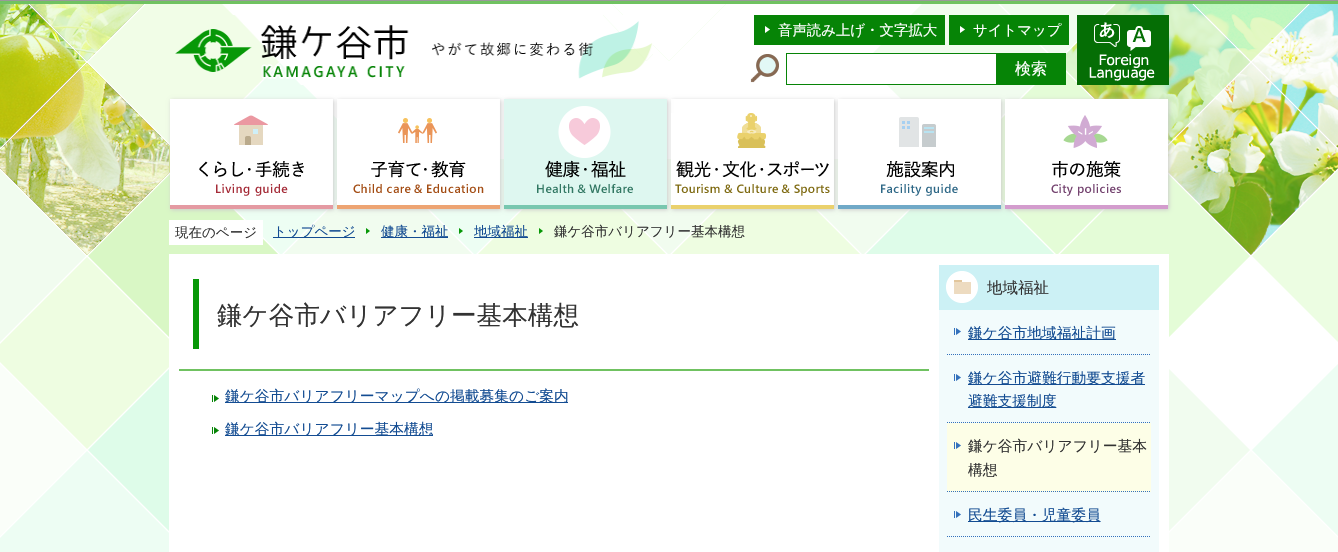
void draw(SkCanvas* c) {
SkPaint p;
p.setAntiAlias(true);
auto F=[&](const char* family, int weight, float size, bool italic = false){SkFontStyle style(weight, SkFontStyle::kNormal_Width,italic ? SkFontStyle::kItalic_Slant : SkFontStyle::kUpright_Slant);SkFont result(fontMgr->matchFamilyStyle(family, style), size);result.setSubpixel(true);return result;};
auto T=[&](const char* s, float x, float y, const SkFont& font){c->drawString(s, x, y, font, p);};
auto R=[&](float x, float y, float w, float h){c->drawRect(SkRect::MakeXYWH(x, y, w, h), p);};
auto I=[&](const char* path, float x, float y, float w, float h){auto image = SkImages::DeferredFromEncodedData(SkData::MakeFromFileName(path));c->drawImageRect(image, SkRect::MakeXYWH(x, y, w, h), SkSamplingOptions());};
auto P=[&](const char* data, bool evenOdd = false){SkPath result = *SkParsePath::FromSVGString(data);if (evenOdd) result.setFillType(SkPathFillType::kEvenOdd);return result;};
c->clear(0xffffffff);
p.setColor(0xff999999);
R(0,0,1338,1);
I("1.png",0,1,1338,551);
I("2.png",175,15,478,70);
p.setColor(0xff068406);
R(754,15,191,30);
I("3.png",765,26,5,7);
auto f1 = F("WenQuanYi Zen Hei",500,14.4);
p.setColor(0xffffffff);
T("音声読み上げ・文字拡大",778,35,f1);
p.setColor(0xff068406);
R(949,15,120,30);
I("3.png",960,26,5,7);
p.setColor(0xffffffff);
T("サイトマップ",973,35,f1);
I("4.png",750,54,29,29);
R(864,54,132,30);
p.setStroke(true);
p.setStrokeWidth(1);
p.setColor(0xff078407);
c->drawRect(SkRect::MakeXYWH(786.5,53.5,210,31),p);
p.setStroke(false);
p.setColor(0xff068406);
R(997,53,69,32);
auto f2 = F("WenQuanYi Zen Hei",500,16);
p.setColor(0xffffffff);
T("検索",1015,74,f2);
I("5.png",1077,15,92,70);
p.setColor(0xffcccccc);
p.setMaskFilter(SkMaskFilter::MakeBlur(kNormal_SkBlurStyle, 2));
c->drawRect(SkRect::MakeXYWH(171,100,163,110),p);
p.setMaskFilter(nullptr);
I("6.png",170,99,163,110);
c->save();
c->clipPath(P("M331 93h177v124h-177zm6 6h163v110h-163z",true),true);
p.setMaskFilter(SkMaskFilter::MakeBlur(kNormal_SkBlurStyle, 2));
c->drawRect(SkRect::MakeXYWH(338,100,163,110),p);
p.setMaskFilter(nullptr);
c->restore();
I("7.png",337,118,163,91);
p.setMaskFilter(SkMaskFilter::MakeBlur(kNormal_SkBlurStyle, 2));
c->drawRect(SkRect::MakeXYWH(505,100,163,110),p);
p.setMaskFilter(nullptr);
I("8.png",504,99,163,110);
c->save();
c->clipPath(P("M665 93h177v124h-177zm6 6h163v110h-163z",true),true);
p.setMaskFilter(SkMaskFilter::MakeBlur(kNormal_SkBlurStyle, 2));
c->drawRect(SkRect::MakeXYWH(672,100,163,110),p);
p.setMaskFilter(nullptr);
c->restore();
I("9.png",671,113,163,96);
p.setMaskFilter(SkMaskFilter::MakeBlur(kNormal_SkBlurStyle, 2));
c->drawRect(SkRect::MakeXYWH(839,100,163,110),p);
p.setMaskFilter(nullptr);
I("10.png",838,99,163,110);
p.setMaskFilter(SkMaskFilter::MakeBlur(kNormal_SkBlurStyle, 2));
c->drawRect(SkRect::MakeXYWH(1006,100,163,110),p);
p.setMaskFilter(nullptr);
I("11.png",1005,99,163,110);
p.setColor(0xffffffff);
R(169,220,94,25);
auto f3 = F("WenQuanYi Zen Hei",500,13.5);
p.setColor(0xff333333);
T("現在のページ",175,237,f3);
I("12.png",366,228,4,6);
p.setColor(0xff134c92);
R(273,237,82,1);
T("トップページ",273,236,f3);
I("13.png",459,228,4,6);
R(381,237,67,1);
T("健康・福祉",381,236,f3);
I("14.png",539,228,4,6);
R(474,237,54,1);
T("地域福祉",474,236,f3);
p.setColor(0xff333333);
T("鎌ケ谷市バリアフリー基本構想",554,236,f3);
p.setColor(0xffffffff);
R(169,254,1000,298);
p.setColor(0xff70c261);
R(179,369,750,2);
p.setColor(0xff079807);
R(193,279,6,70);
auto f4 = F("WenQuanYi Zen Hei",500,25.6);
p.setColor(0xff333333);
T("鎌ケ谷市バリアフリー基本構想",217,324,f4);
I("15.png",212,395,7,7);
p.setColor(0xff134c92);
R(225,402,343,1);
auto f5 = F("WenQuanYi Zen Hei",500,14.75);
T("鎌ケ谷市バリアフリーマップへの掲載募集のご案内",225,401,f5);
I("15.png",212,427,7,7);
R(225,435,208,1);
T("鎌ケ谷市バリアフリー基本構想",225,434,f5);
p.setColor(0xfff2fbfc);
R(939,310,220,242);
p.setColor(0xffccf1f5);
R(939,265,220,45);
I("16.png",946,271,32,32);
auto f6 = F("WenQuanYi Zen Hei",500,15.5);
p.setColor(0xff333333);
T("地域福祉",987,293,f6);
I("17.png",954,328,7,7);
p.setColor(0xff134c92);
R(968,339,148,1);
T("鎌ケ谷市地域福祉計画",968,338,f5);
p.setStroke(true);
p.setColor(0xff3471bc);
p.setPathEffect(SkDashPathEffect::Make({{1,1}}, 0));
c->drawPath(P("M947 354.5h204"),p);
p.setPathEffect(nullptr);
I("18.png",954,374,103,34);
p.setStroke(false);
p.setColor(0xff134c92);
R(1057,384,88,1);
T("鎌ケ谷市避難行動要支援者",968,383,f5);
T("避難支援制度",968,406,f5);
p.setStroke(true);
p.setColor(0xff3471bc);
p.setPathEffect(SkDashPathEffect::Make({{1,1}}, 0));
c->drawPath(P("M947 422.5h204"),p);
p.setPathEffect(nullptr);
p.setStroke(false);
p.setColor(0xfffdfee7);
R(947,423,204,69);
I("19.png",954,442,7,7);
p.setColor(0xff333333);
T("鎌ケ谷市バリアフリー基本",968,451,f5);
T("構想",968,475,f5);
p.setStroke(true);
p.setColor(0xff3471bc);
p.setPathEffect(SkDashPathEffect::Make({{1,1}}, 0));
c->drawPath(P("M947 491.5h204"),p);
p.setPathEffect(nullptr);
I("20.png",954,511,147,11);
p.setStroke(false);
p.setColor(0xff134c92);
T("民生委員・児童委員",968,520,f5);
p.setStroke(true);
p.setColor(0xff3471bc);
p.setPathEffect(SkDashPathEffect::Make({{1,1}}, 0));
c->drawPath(P("M947 536.5h204"),p);
p.setPathEffect(nullptr);
}
